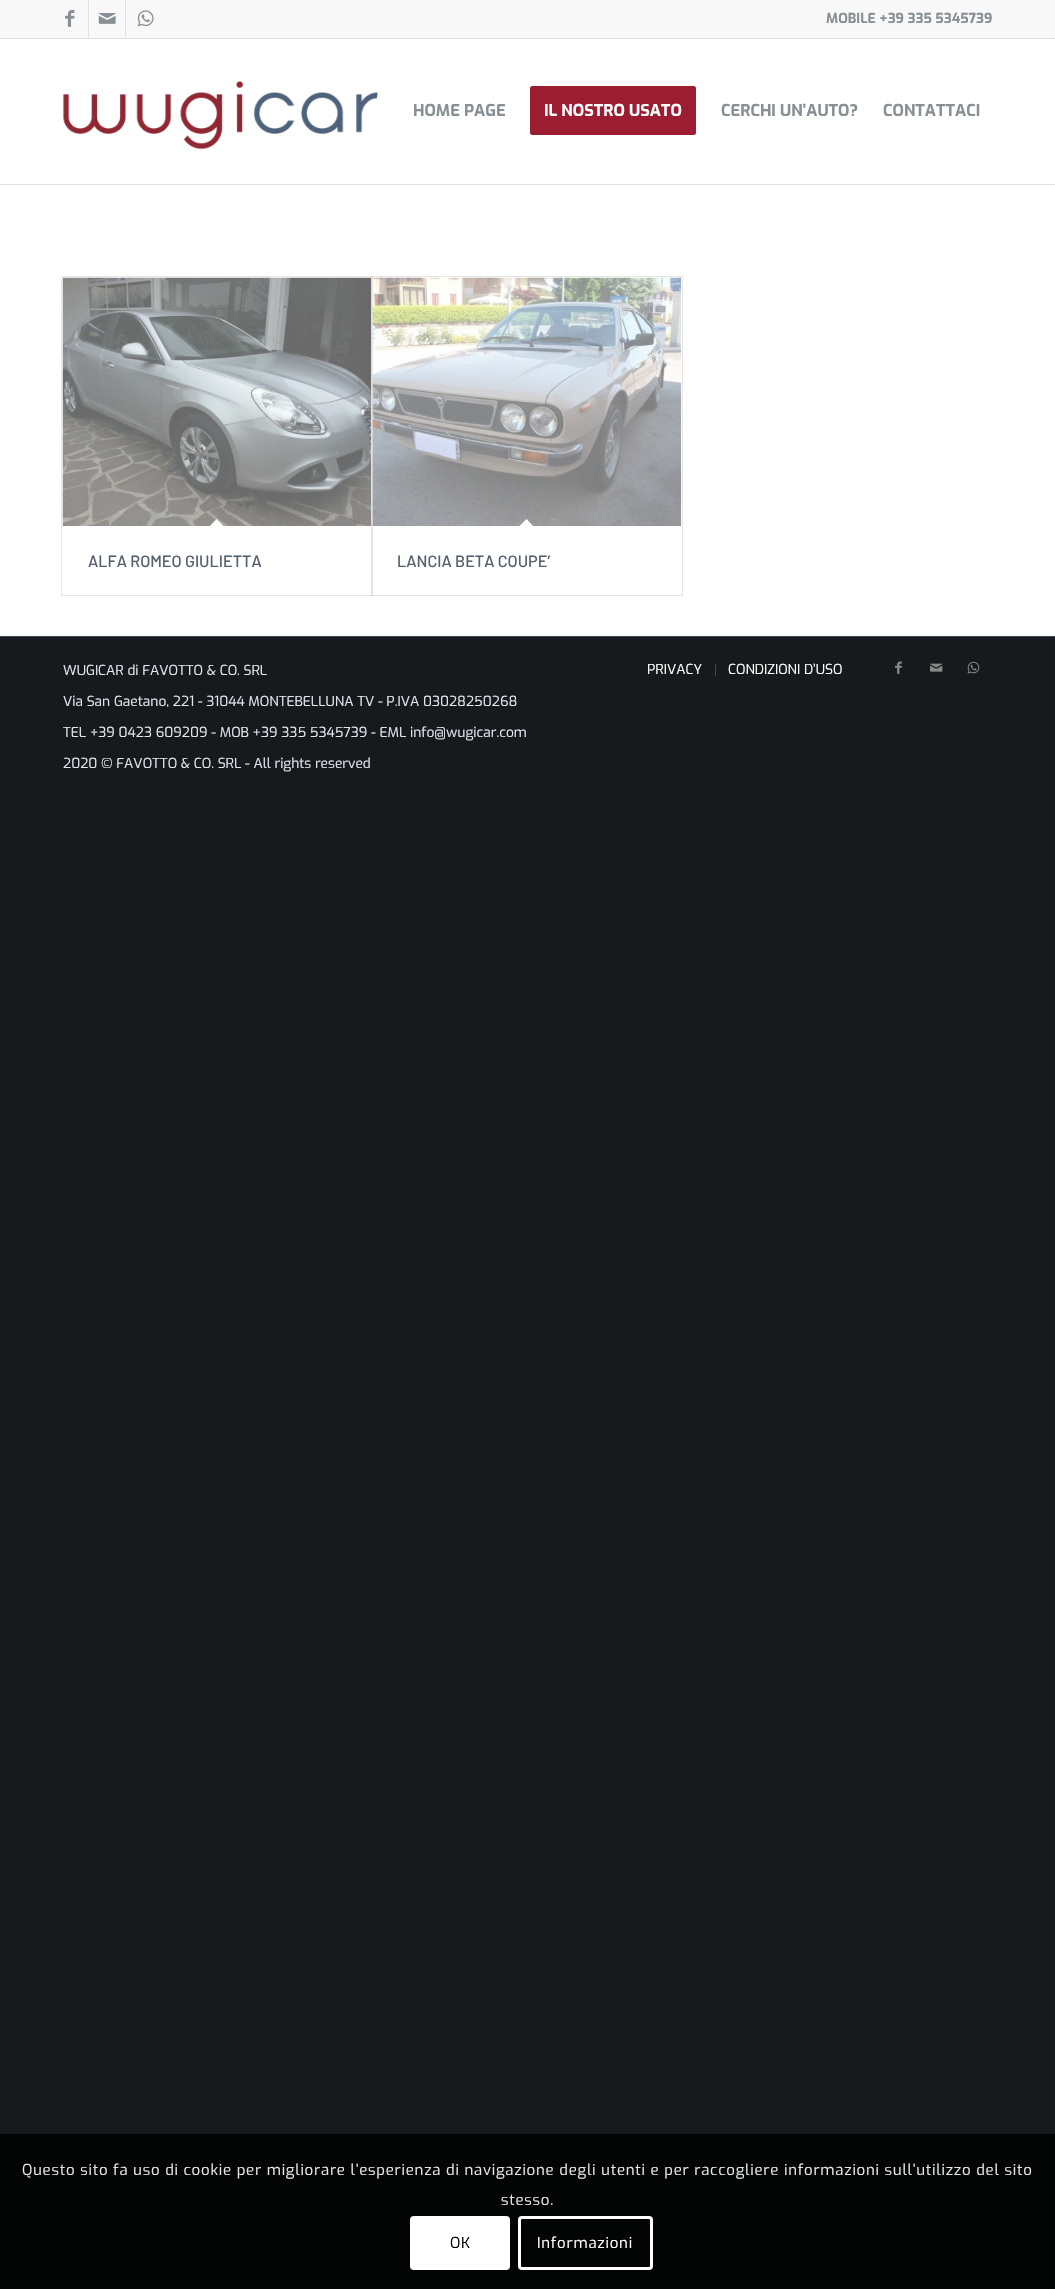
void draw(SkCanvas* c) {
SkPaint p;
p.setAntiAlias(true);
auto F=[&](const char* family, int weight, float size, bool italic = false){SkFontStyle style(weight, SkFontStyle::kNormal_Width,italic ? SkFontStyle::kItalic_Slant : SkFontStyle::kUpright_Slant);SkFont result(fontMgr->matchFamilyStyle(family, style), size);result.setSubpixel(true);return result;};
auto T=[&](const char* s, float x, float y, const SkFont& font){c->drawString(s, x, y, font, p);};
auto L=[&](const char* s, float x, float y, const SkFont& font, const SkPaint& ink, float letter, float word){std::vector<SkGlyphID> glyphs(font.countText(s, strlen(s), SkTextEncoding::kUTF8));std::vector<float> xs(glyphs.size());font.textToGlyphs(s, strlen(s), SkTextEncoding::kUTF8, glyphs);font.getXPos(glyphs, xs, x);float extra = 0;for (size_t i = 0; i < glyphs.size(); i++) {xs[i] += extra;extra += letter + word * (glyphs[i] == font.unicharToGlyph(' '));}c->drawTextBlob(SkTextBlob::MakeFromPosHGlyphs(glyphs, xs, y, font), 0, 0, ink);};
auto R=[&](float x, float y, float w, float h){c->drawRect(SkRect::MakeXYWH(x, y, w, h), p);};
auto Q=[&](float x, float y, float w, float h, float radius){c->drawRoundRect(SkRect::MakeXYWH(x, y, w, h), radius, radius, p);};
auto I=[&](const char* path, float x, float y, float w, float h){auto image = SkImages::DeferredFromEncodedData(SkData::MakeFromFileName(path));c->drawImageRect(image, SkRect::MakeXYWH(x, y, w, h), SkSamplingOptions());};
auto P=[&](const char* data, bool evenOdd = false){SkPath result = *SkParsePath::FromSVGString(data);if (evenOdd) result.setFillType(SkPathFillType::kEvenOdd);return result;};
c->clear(0xff161a1c);
p.setColor(0xffffffff);
R(0,39,1055,597);
p.setColor(0xfff8f8f8);
R(0,0,1055,38);
p.setColor(0xffe1e1e1);
R(0,38,1055,1);
R(88,0,1,38);
I("1.png",65,10,10,17);
R(125,0,1,38);
I("2.png",98,13,18,11);
I("3.png",137,10,17,17);
auto f1 = F("Exo",700,13.75);
p.setColor(0xff889095);
T("MOBILE +39 335 5345739",826,23,f1);
p.setColor(0xffe1e1e1);
R(0,184,1055,1);
I("4.png",63,81,316,69);
auto f2 = F("Exo",700,16.25);
p.setColor(0xff889095);
T("HOME PAGE",413,116,f2);
p.setColor(0xff9c1c31);
c->drawRoundRect(SkRect::MakeXYWH(531.5,87.5,163,46),1,1,p);
p.setStroke(true);
p.setStrokeWidth(3);
c->drawRoundRect(SkRect::MakeXYWH(531.5,87.5,163,46),1,1,p);
p.setStroke(false);
p.setColor(0xffffffff);
T("IL NOSTRO USATO",544,116,f2);
p.setColor(0xff889095);
T("CERCHI UN’AUTO?",721,116,f2);
T("CONTATTACI",883,116,f2);
p.setStroke(true);
p.setStrokeWidth(1);
p.setColor(0xffe6e6e6);
c->drawRect(SkRect::MakeXYWH(61.5,276.5,311,319),p);
I("5.png",62,277,310,249);
p.setStroke(false);
p.setColor(0xffffffff);
c->drawPath(P("M216.5 519l9 9l-9 9l-8.5-9z"),p);
auto f3 = F("Barlow",500,16.25);
p.setColor(0xff55606e);
T("ALFA ROMEO GIULIETTA",88,567,f3);
p.setStroke(true);
p.setColor(0x1a000000);
c->drawRect(SkRect::MakeXYWH(371.5,276.5,311,319),p);
I("6.png",372,277,310,249);
p.setStroke(false);
p.setColor(0xffffffff);
c->drawPath(P("M526.5 519l8.5 9l-8.5 9l-9-9z"),p);
p.setColor(0xff55606e);
T("LANCIA BETA COUPE’",397,567,f3);
p.setColor(0xff3e4a52);
R(0,636,1055,1);
auto f4 = F("Exo",400,13.75);
p.setColor(0xffe4e6f0);
T("WUGICAR di FAVOTTO & CO. SRL",63,675,f4);
T("Via San Gaetano, 221 - 31044 MONTEBELLUNA TV - P.IVA 03028250268",63,706,f4);
T("TEL +39 0423 609209 - MOB +39 335 5345739 - EML info@wugicar.com",63,737,f4);
T("2020 © FAVOTTO & CO. SRL - All rights reserved",63,768,f4);
p.setColor(0xffffffff);
T("PRIVACY",647,674,f4);
p.setColor(0xff3e4a52);
R(715,664,1,12);
p.setColor(0xffffffff);
T("CONDIZIONI D’USO",728,674,f4);
I("7.png",895,661,7,13);
I("8.png",930,663,13,9);
I("9.png",967,661,13,13);
p.setColor(0xff030404);
R(0,2134,1055,155);
auto f5 = F("Exo",400,15);
p.setColor(0xffe6e6e6);
L("Questo sito fa uso di cookie per migliorare l’esperienza di navigazione degli utenti e per raccogliere informazioni sull’utilizzo del sito",22,2175,f5,p,.75,0);
L("stesso.",501,2205,f5,p,.75,0);
p.setColor(0xffffffff);
Q(410,2216,100,54,4);
p.setColor(0xff000000);
L("OK",450,2248,f5,p,.75,0);
p.setStroke(true);
p.setStrokeWidth(3);
p.setColor(0xffffffff);
c->drawRoundRect(SkRect::MakeXYWH(519.5,2217.5,132,51),2.5,2.5,p);
p.setStroke(false);
L("Informazioni",537,2248,f5,p,.75,0);
}
